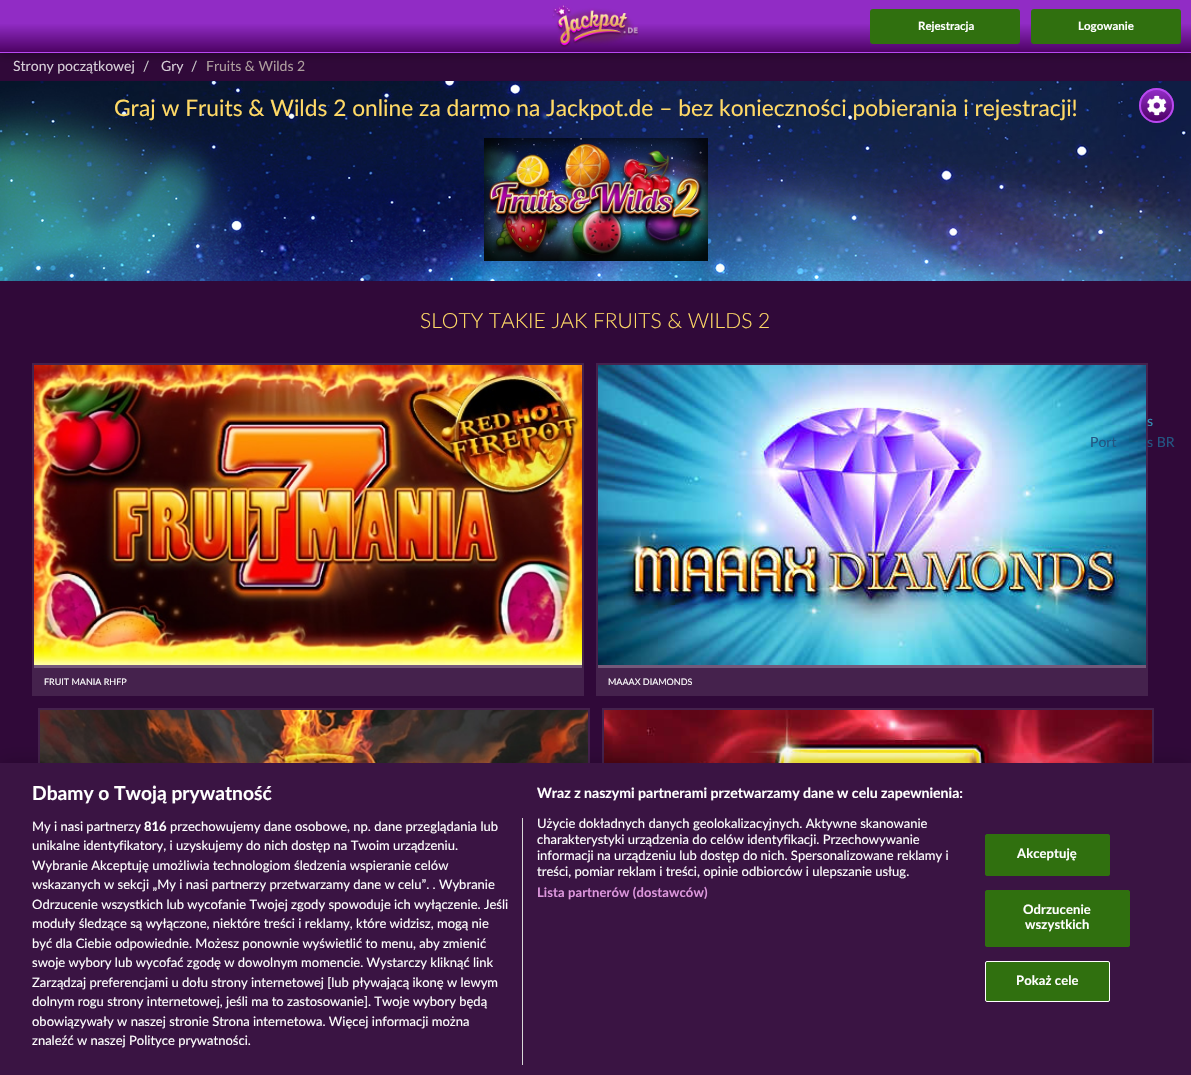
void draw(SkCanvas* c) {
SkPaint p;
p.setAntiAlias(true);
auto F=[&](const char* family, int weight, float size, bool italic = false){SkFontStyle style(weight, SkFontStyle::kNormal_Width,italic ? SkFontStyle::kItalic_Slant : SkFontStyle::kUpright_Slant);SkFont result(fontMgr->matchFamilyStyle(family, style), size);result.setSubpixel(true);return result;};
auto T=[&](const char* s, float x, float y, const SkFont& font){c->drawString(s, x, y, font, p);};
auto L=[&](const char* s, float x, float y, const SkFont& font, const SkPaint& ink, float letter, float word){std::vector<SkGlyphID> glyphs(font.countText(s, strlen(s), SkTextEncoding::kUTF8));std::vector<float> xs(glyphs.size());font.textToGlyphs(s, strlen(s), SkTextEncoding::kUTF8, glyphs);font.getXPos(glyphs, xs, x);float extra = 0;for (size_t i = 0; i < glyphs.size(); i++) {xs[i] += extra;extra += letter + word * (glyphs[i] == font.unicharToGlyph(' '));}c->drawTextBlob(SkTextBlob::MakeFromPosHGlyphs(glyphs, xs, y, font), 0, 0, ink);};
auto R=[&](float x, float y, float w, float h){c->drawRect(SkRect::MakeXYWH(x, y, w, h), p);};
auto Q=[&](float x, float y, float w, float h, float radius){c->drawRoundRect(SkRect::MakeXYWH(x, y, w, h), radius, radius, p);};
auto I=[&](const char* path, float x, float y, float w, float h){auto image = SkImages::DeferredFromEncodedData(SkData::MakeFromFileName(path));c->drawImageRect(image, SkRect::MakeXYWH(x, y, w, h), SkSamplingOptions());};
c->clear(0xff300939);
p.setColor(0x4d000000);
p.setMaskFilter(SkMaskFilter::MakeBlur(kNormal_SkBlurStyle, 4));
c->drawRect(SkRect::MakeXYWH(0,2,1191,53),p);
p.setMaskFilter(nullptr);
{
const SkColor colors[] = {0xff912cc5,0xff4d0264};
const float stops[] = {.45,1};
const SkPoint ends[] = {{596,0}, {596,52}};
p.setShader(SkGradientShader::MakeLinear(ends, colors, stops, 2, SkTileMode::kClamp));
p.setAlpha(255);
}
R(0,0,1191,52);
p.setShader(nullptr);
p.setColor(0xffb849f1);
R(0,52,1191,1);
I("1.png",552,5,87,43);
p.setColor(0xff30700f);
Q(870,9,150,35,3);
auto f1 = F("Lato",700,11.5);
p.setColor(0xffffffff);
T("Rejestracja",918,30,f1);
p.setColor(0xff30700f);
Q(1031,9,150,35,3);
p.setColor(0xffffffff);
T("Logowanie",1078,30,f1);
auto f2 = F("Lato",400,14);
p.setColor(0xffd6ced7);
T("Strony początkowej",13,71,f2);
p.setColor(0xffcccccc);
T("/",143,71,f2);
p.setColor(0xffd6ced7);
T("Gry",161,71,f2);
p.setColor(0xffcccccc);
T("/",191,71,f2);
p.setColor(0xffac9d9d);
T("Fruits & Wilds 2",206,71,f2);
I("2.png",0,81,1191,200);
auto f3 = F("Lato",400,22.75);
p.setColor(0xffffd966);
T("Graj w Fruits & Wilds 2 online za darmo na Jackpot.de – bez konieczności pobierania i rejestracji!",114,116,f3);
I("3.png",484,138,224,123);
auto f4 = F("Lato",300,21);
T("SLOTY TAKIE JAK FRUITS & WILDS 2",420,328,f4);
p.setColor(0xff45224d);
R(32,363,552,333);
p.setColor(0xff74597a);
R(34,665,548,3);
I("4.png",34,365,548,300);
auto f5 = F("Lato",400,9);
p.setColor(0xffffffff);
T("FRUIT MANIA RHFP",44,685,f5);
p.setColor(0xff45224d);
R(596,363,552,333);
p.setColor(0xff74597a);
R(598,665,548,3);
I("5.png",598,365,548,300);
p.setColor(0xffffffff);
T("MAAAX DIAMONDS",608,685,f5);
p.setColor(0xff45224d);
R(38,708,552,55);
I("6.png",40,710,548,53);
R(602,708,552,55);
I("7.png",604,710,548,53);
I("8.png",1139,88,35,35);
p.setStroke(true);
p.setStrokeWidth(2);
p.setColor(0xffb849f1);
c->drawCircle(1156.5,105.5,16.5,p);
p.setStroke(false);
p.setColor(0xff3392b7);
T("s",1147,426,f2);
p.setColor(0xff235683);
T("Port",1090,447,f2);
T("s BR",1147,447,f2);
p.setColor(0x33000000);
p.setMaskFilter(SkMaskFilter::MakeBlur(kNormal_SkBlurStyle, 9));
c->drawRect(SkRect::MakeXYWH(0,763,1191,312),p);
p.setMaskFilter(nullptr);
p.setColor(0xff3a1443);
R(0,763,1191,312);
auto f6 = F("Lato",700,19.25);
p.setColor(0xffffffff);
T("Dbamy o Twoją prywatność",32,800,f6);
auto f7 = F("Lato",700,14.1);
T("Wraz z naszymi partnerami przetwarzamy dane w celu zapewnienia:",537,798,f7);
auto f8 = F("Lato",400,13);
T("Użycie dokładnych danych geolokalizacyjnych. Aktywne skanowanie",537,828,f8);
T("charakterystyki urządzenia do celów identyfikacji. Przechowywanie",537,844,f8);
T("informacji na urządzeniu lub dostęp do nich. Spersonalizowane reklamy i",537,860,f8);
T("treści, pomiar reklam i treści, opinie odbiorców i ulepszanie usług.",537,876,f8);
auto f9 = F("Lato",700,13);
p.setColor(0xffdd97dd);
L("Lista partnerów (dostawców)",537,897,f9,p,.1,0);
p.setColor(0xffd8d8d8);
R(522,818,1,247);
p.setColor(0xffffffff);
T("My i nasi partnerzy",32,831,f8);
T("816",144,831,f9);
T("przechowujemy dane osobowe, np. dane przeglądania lub",170,831,f8);
T("unikalne identyfikatory, i uzyskujemy do nich dostęp na Twoim urządzeniu.",32,850,f8);
T("Wybranie Akceptuję umożliwia technologiom śledzenia wspieranie celów",32,870,f8);
T("wskazanych w sekcji „My i nasi partnerzy przetwarzamy dane w celu”. . Wybranie",32,889,f8);
T("Odrzucenie wszystkich lub wycofanie Twojej zgody spowoduje ich wyłączenie. Jeśli",32,909,f8);
T("moduły śledzące są wyłączone, niektóre treści i reklamy, które widzisz, mogą nie",32,928,f8);
T("być dla Ciebie odpowiednie. Możesz ponownie wyświetlić to menu, aby zmienić",32,948,f8);
T("swoje wybory lub wycofać zgodę w dowolnym momencie. Wystarczy kliknąć link",32,967,f8);
T("Zarządzaj preferencjami u dołu strony internetowej [lub pływającą ikonę w lewym",32,987,f8);
T("dolnym rogu strony internetowej, jeśli ma to zastosowanie]. Twoje wybory będą",32,1006,f8);
T("obowiązywały w naszej stronie Strona internetowa. Więcej informacji można",32,1026,f8);
T("znaleźć w naszej Polityce prywatności.",32,1045,f8);
p.setColor(0xff30700f);
c->drawRoundRect(SkRect::MakeXYWH(985.5,834.5,124,41),1.5,1.5,p);
p.setStroke(true);
p.setStrokeWidth(1);
c->drawRoundRect(SkRect::MakeXYWH(985.5,834.5,124,41),1.5,1.5,p);
p.setStroke(false);
p.setColor(0xffffffff);
L("Akceptuję",1017,858,f9,p,.1,0);
p.setColor(0xff30700f);
c->drawRoundRect(SkRect::MakeXYWH(985.5,890.5,144,56),1.5,1.5,p);
p.setStroke(true);
c->drawRoundRect(SkRect::MakeXYWH(985.5,890.5,144,56),1.5,1.5,p);
p.setStroke(false);
p.setColor(0xffffffff);
L("Odrzucenie",1023,914,f9,p,.1,0);
L("wszystkich",1025,929,f9,p,.1,0);
p.setColor(0xff30700f);
c->drawRoundRect(SkRect::MakeXYWH(985.5,961.5,124,40),1.5,1.5,p);
p.setStroke(true);
p.setColor(0xffffffff);
c->drawRoundRect(SkRect::MakeXYWH(985.5,961.5,124,40),1.5,1.5,p);
p.setStroke(false);
L("Pokaż cele",1016,985,f9,p,.1,0);
}
